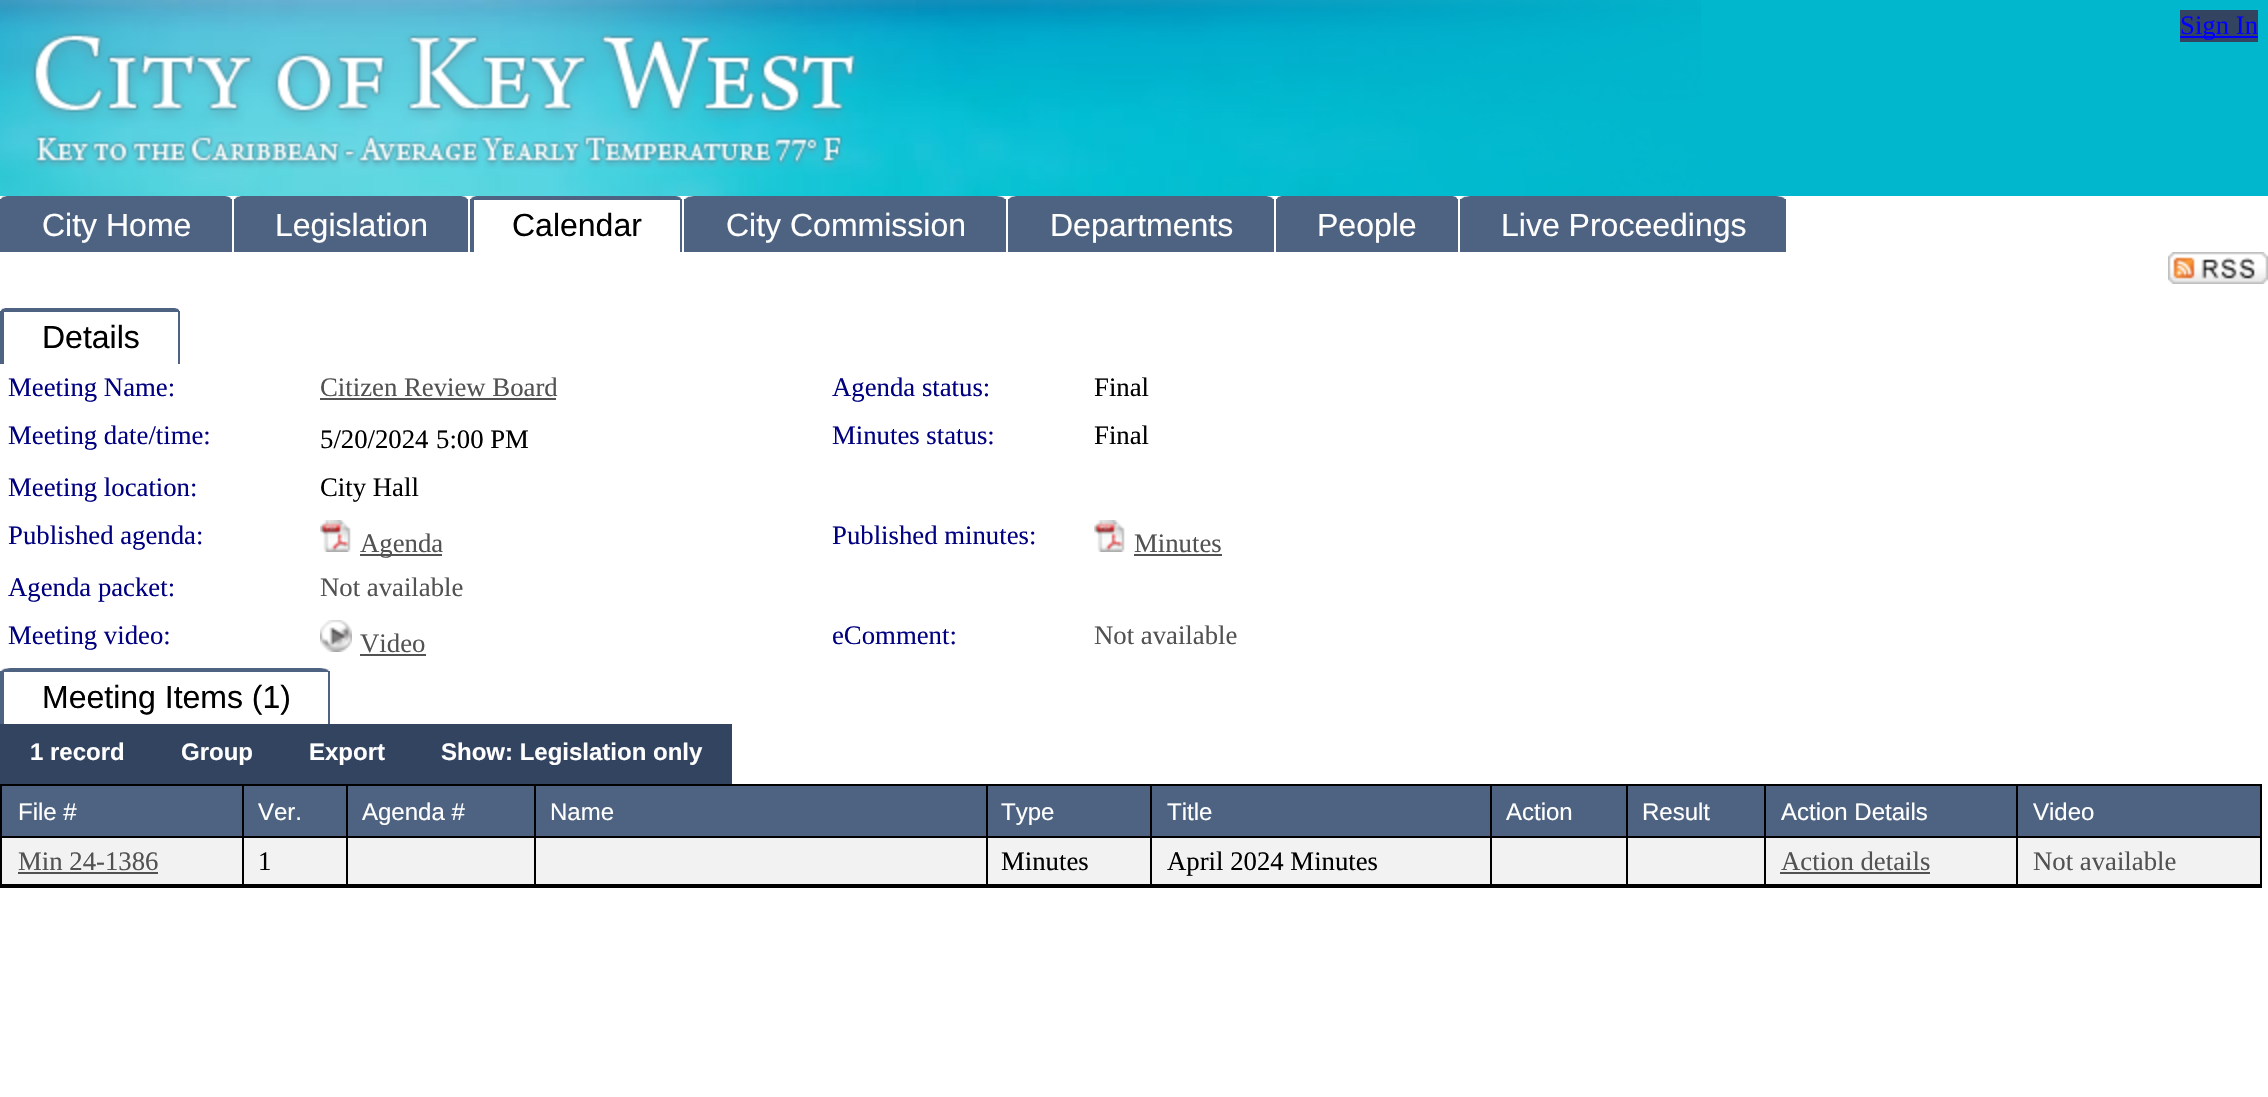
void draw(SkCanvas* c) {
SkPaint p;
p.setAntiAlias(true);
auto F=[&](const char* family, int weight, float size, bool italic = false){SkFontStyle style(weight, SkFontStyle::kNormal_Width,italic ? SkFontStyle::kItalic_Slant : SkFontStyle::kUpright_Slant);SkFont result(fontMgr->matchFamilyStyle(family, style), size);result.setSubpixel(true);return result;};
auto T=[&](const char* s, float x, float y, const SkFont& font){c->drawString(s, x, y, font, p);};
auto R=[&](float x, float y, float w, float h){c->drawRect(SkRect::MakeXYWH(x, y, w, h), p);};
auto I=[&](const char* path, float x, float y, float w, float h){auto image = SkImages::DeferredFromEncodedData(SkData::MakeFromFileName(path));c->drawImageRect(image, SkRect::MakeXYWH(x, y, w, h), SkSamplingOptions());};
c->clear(0xffffffff);
p.setColor(0xff01b7cd);
R(1701,0,567,196);
I("1.png",0,0,1701,196);
p.setColor(0xff334460);
R(2180,10,78,32);
p.setColor(0xff0000ff);
R(2180,36,78,2);
auto f1 = F("Liberation Serif",400,26.75);
T("Sign In",2180,34,f1);
I("2.png",0,196,232,56);
auto f2 = F("Liberation Sans",400,32);
p.setColor(0xffffffff);
T("City Home",42,236,f2);
I("3.png",234,196,234,56);
T("Legislation",275,236,f2);
I("4.png",470,196,212,56);
R(474,200,206,52);
p.setColor(0xff000000);
T("Calendar",512,236,f2);
I("5.png",684,196,322,56);
p.setColor(0xffffffff);
T("City Commission",726,236,f2);
I("6.png",1008,196,266,56);
T("Departments",1050,236,f2);
I("7.png",1276,196,182,56);
T("People",1317,236,f2);
I("8.png",1460,196,326,56);
T("Live Proceedings",1501,236,f2);
I("9.png",2168,252,100,32);
I("10.png",0,308,180,56);
R(4,312,174,52);
p.setColor(0xff000000);
T("Details",42,348,f2);
p.setColor(0xff000080);
T("Meeting Name:",8,396,f1);
p.setColor(0xff525252);
T("Citizen Review Board",320,396,f1);
R(320,398,236,2);
p.setColor(0xff000080);
T("Agenda status:",832,396,f1);
p.setColor(0xff000000);
T("Final",1094,396,f1);
p.setColor(0xff000080);
T("Meeting date/time:",8,444,f1);
p.setColor(0xff000000);
T("5/20/2024",320,448,f1);
T("5:00 PM",436,448,f1);
p.setColor(0xff000080);
T("Minutes status:",832,444,f1);
p.setColor(0xff000000);
T("Final",1094,444,f1);
p.setColor(0xff000080);
T("Meeting location:",8,496,f1);
p.setColor(0xff000000);
T("City Hall",320,496,f1);
p.setColor(0xff000080);
T("Published agenda:",8,544,f1);
I("11.png",320,520,31,32);
p.setColor(0xff525252);
R(360,554,82,2);
T("Agenda",360,552,f1);
p.setColor(0xff000080);
T("Published minutes:",832,544,f1);
I("11.png",1094,520,31,32);
p.setColor(0xff525252);
T("Minutes",1134,552,f1);
R(1134,554,88,2);
p.setColor(0xff000080);
T("Agenda packet:",8,596,f1);
p.setColor(0xff525252);
T("Not available",320,596,f1);
p.setColor(0xff000080);
T("Meeting video:",8,644,f1);
I("12.png",320,620,32,32);
p.setColor(0xff525252);
T("Video",360,652,f1);
R(360,654,66,2);
p.setColor(0xff000080);
T("eComment:",832,644,f1);
p.setColor(0xff525252);
T("Not available",1094,644,f1);
I("13.png",0,668,330,56);
p.setColor(0xffffffff);
R(4,672,324,52);
p.setColor(0xff000000);
T("Meeting Items (1)",42,708,f2);
p.setColor(0xff334460);
R(0,724,732,60);
auto f3 = F("Liberation Sans",700,24);
p.setColor(0xffffffff);
T("1 record",30,760,f3);
T("Group",181,760,f3);
T("Export",309,760,f3);
T("Show: Legislation only",441,760,f3);
p.setStroke(true);
p.setStrokeWidth(2);
p.setColor(0xff000000);
c->drawRect(SkRect::MakeXYWH(1,785,2260,102),p);
p.setStroke(false);
p.setColor(0xff4e6381);
R(2,786,240,50);
p.setColor(0xff000000);
R(2,836,2258,2);
auto f4 = F("Liberation Sans",400,24);
p.setColor(0xffffffff);
T("File #",18,820,f4);
p.setColor(0xff4e6381);
R(244,786,102,50);
p.setColor(0xff000000);
R(242,786,2,52);
p.setColor(0xffffffff);
T("Ver.",258,820,f4);
p.setColor(0xff4e6381);
R(348,786,186,50);
p.setColor(0xff000000);
R(346,786,2,52);
p.setColor(0xffffffff);
T("Agenda #",362,820,f4);
p.setColor(0xff4e6381);
R(536,786,450,50);
p.setColor(0xff000000);
R(534,786,2,52);
p.setColor(0xffffffff);
T("Name",550,820,f4);
p.setColor(0xff4e6381);
R(988,786,162,50);
p.setColor(0xff000000);
R(986,786,2,52);
p.setColor(0xffffffff);
T("Type",1001,820,f4);
p.setColor(0xff4e6381);
R(1152,786,338,50);
p.setColor(0xff000000);
R(1150,786,2,52);
p.setColor(0xffffffff);
T("Title",1167,820,f4);
p.setColor(0xff4e6381);
R(1492,786,134,50);
p.setColor(0xff000000);
R(1490,786,2,52);
p.setColor(0xffffffff);
T("Action",1506,820,f4);
p.setColor(0xff4e6381);
R(1628,786,136,50);
p.setColor(0xff000000);
R(1626,786,2,52);
p.setColor(0xffffffff);
T("Result",1642,820,f4);
p.setColor(0xff4e6381);
R(1766,786,250,50);
p.setColor(0xff000000);
R(1764,786,2,52);
p.setColor(0xffffffff);
T("Action Details",1781,820,f4);
p.setColor(0xff4e6381);
R(2018,786,242,50);
p.setColor(0xff000000);
R(2016,786,2,52);
p.setColor(0xffffffff);
T("Video",2033,820,f4);
p.setColor(0xfff2f2f2);
R(2,838,240,46);
p.setColor(0xff000000);
R(2,884,2258,2);
p.setColor(0xff525252);
T("Min 24-1386",18,870,f1);
R(18,872,140,2);
p.setColor(0xfff2f2f2);
R(244,838,102,46);
p.setColor(0xff000000);
R(242,838,2,48);
T("1",258,870,f1);
p.setColor(0xfff2f2f2);
R(348,838,186,46);
p.setColor(0xff000000);
R(346,838,2,48);
p.setColor(0xfff2f2f2);
R(536,838,450,46);
p.setColor(0xff000000);
R(534,838,2,48);
p.setColor(0xfff2f2f2);
R(988,838,162,46);
p.setColor(0xff000000);
R(986,838,2,48);
T("Minutes",1001,870,f1);
p.setColor(0xfff2f2f2);
R(1152,838,338,46);
p.setColor(0xff000000);
R(1150,838,2,48);
T("April 2024 Minutes",1167,870,f1);
p.setColor(0xfff2f2f2);
R(1492,838,134,46);
p.setColor(0xff000000);
R(1490,838,2,48);
p.setColor(0xfff2f2f2);
R(1628,838,136,46);
p.setColor(0xff000000);
R(1626,838,2,48);
p.setColor(0xfff2f2f2);
R(1766,838,250,46);
p.setColor(0xff000000);
R(1764,838,2,48);
p.setColor(0xff525252);
T("Action details",1781,870,f1);
R(1780,872,150,2);
p.setColor(0xfff2f2f2);
R(2018,838,242,46);
p.setColor(0xff000000);
R(2016,838,2,48);
p.setColor(0xff525252);
T("Not available",2033,870,f1);
}
